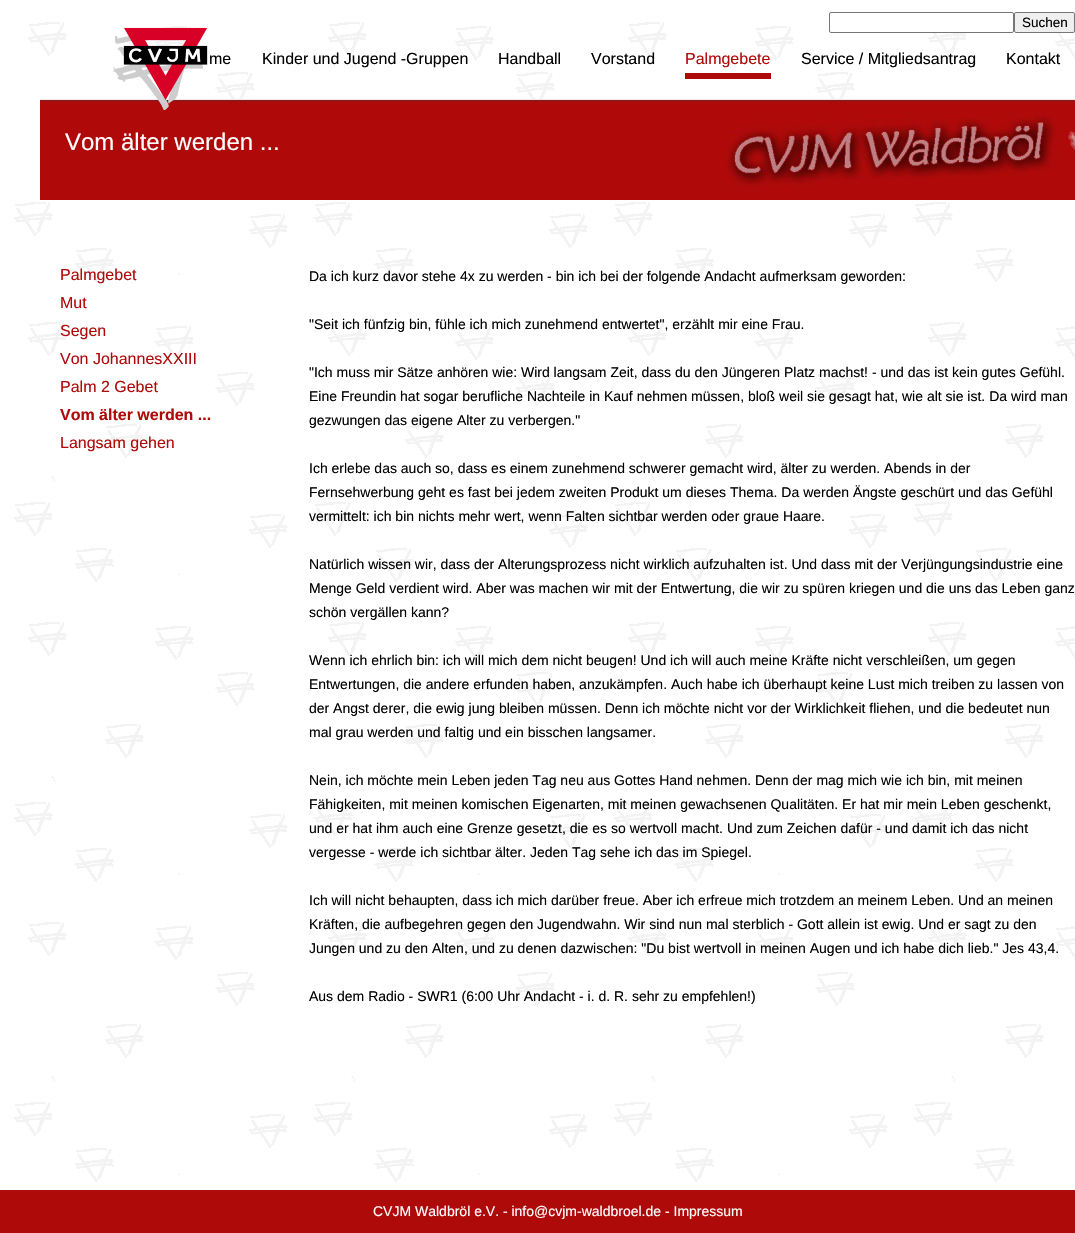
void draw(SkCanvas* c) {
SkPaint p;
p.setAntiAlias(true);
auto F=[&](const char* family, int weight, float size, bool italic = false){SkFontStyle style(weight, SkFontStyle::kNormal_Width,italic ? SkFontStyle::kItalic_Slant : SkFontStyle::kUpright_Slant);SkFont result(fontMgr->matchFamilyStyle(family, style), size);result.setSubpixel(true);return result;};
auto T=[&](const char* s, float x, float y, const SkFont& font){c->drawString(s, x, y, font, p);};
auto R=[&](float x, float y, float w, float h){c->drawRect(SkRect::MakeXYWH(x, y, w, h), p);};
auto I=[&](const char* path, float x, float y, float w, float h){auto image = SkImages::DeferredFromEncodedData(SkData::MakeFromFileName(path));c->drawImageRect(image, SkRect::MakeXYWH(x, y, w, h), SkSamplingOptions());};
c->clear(0xffffffff);
I("1.png",14,22,1061,1168);
p.setColor(0xffffffff);
c->drawRoundRect(SkRect::MakeXYWH(829.5,12.5,184,20),1.5,1.5,p);
p.setStroke(true);
p.setStrokeWidth(1);
p.setColor(0xff767676);
c->drawRoundRect(SkRect::MakeXYWH(829.5,12.5,184,20),1.5,1.5,p);
p.setStroke(false);
p.setColor(0xffefefef);
c->drawRoundRect(SkRect::MakeXYWH(1014.5,12.5,60,20),1.5,1.5,p);
p.setStroke(true);
p.setColor(0xff767676);
c->drawRoundRect(SkRect::MakeXYWH(1014.5,12.5,60,20),1.5,1.5,p);
auto f1 = F("Liberation Sans",400,13.5);
p.setStroke(false);
p.setColor(0xff000000);
T("Suchen",1022,27,f1);
I("3.png",40,99,1035,101);
I("2.png",113,27,95,84);
auto f2 = F("Liberation Sans",400,16);
T("me",209,64,f2);
T("Kinder und Jugend -Gruppen",262,64,f2);
T("Handball",498,64,f2);
T("Vorstand",591,64,f2);
p.setColor(0xffaf0a0a);
R(685,73,86,6);
T("Palmgebete",685,64,f2);
p.setColor(0xff000000);
T("Service / Mitgliedsantrag",801,64,f2);
T("Kontakt",1006,64,f2);
auto f3 = F("Liberation Sans",400,24);
p.setColor(0xffffffff);
T("Vom älter werden ...",65,150,f3);
p.setColor(0xffaf0a0a);
T("Palmgebet",60,280,f2);
T("Mut",60,308,f2);
T("Segen",60,336,f2);
T("Von JohannesXXIII",60,364,f2);
T("Palm 2 Gebet",60,392,f2);
auto f4 = F("Liberation Sans",700,16);
T("Vom älter werden ...",60,420,f4);
T("Langsam gehen",60,448,f2);
auto f5 = F("Liberation Sans",400,14);
p.setColor(0xff000000);
T("Da ich kurz davor stehe 4x zu werden - bin ich bei der folgende Andacht aufmerksam geworden:",309,281,f5);
T("\"Seit ich fünfzig bin, fühle ich mich zunehmend entwertet\", erzählt mir eine Frau.",309,329,f5);
T("\"Ich muss mir Sätze anhören wie: Wird langsam Zeit, dass du den Jüngeren Platz machst! - und das ist kein gutes Gefühl.",309,377,f5);
T("Eine Freundin hat sogar berufliche Nachteile in Kauf nehmen müssen, bloß weil sie gesagt hat, wie alt sie ist. Da wird man",309,401,f5);
T("gezwungen das eigene Alter zu verbergen.\"",309,425,f5);
T("Ich erlebe das auch so, dass es einem zunehmend schwerer gemacht wird, älter zu werden. Abends in der",309,473,f5);
T("Fernsehwerbung geht es fast bei jedem zweiten Produkt um dieses Thema. Da werden Ängste geschürt und das Gefühl",309,497,f5);
T("vermittelt: ich bin nichts mehr wert, wenn Falten sichtbar werden oder graue Haare.",309,521,f5);
T("Natürlich wissen wir, dass der Alterungsprozess nicht wirklich aufzuhalten ist. Und dass mit der Verjüngungsindustrie eine",309,569,f5);
T("Menge Geld verdient wird. Aber was machen wir mit der Entwertung, die wir zu spüren kriegen und die uns das Leben ganz",309,593,f5);
T("schön vergällen kann?",309,617,f5);
T("Wenn ich ehrlich bin: ich will mich dem nicht beugen! Und ich will auch meine Kräfte nicht verschleißen, um gegen",309,665,f5);
T("Entwertungen, die andere erfunden haben, anzukämpfen. Auch habe ich überhaupt keine Lust mich treiben zu lassen von",309,689,f5);
T("der Angst derer, die ewig jung bleiben müssen. Denn ich möchte nicht vor der Wirklichkeit fliehen, und die bedeutet nun",309,713,f5);
T("mal grau werden und faltig und ein bisschen langsamer.",309,737,f5);
T("Nein, ich möchte mein Leben jeden Tag neu aus Gottes Hand nehmen. Denn der mag mich wie ich bin, mit meinen",309,785,f5);
T("Fähigkeiten, mit meinen komischen Eigenarten, mit meinen gewachsenen Qualitäten. Er hat mir mein Leben geschenkt,",309,809,f5);
T("und er hat ihm auch eine Grenze gesetzt, die es so wertvoll macht. Und zum Zeichen dafür - und damit ich das nicht",309,833,f5);
T("vergesse - werde ich sichtbar älter. Jeden Tag sehe ich das im Spiegel.",309,857,f5);
T("Ich will nicht behaupten, dass ich mich darüber freue. Aber ich erfreue mich trotzdem an meinem Leben. Und an meinen",309,905,f5);
T("Kräften, die aufbegehren gegen den Jugendwahn. Wir sind nun mal sterblich - Gott allein ist ewig. Und er sagt zu den",309,929,f5);
T("Jungen und zu den Alten, und zu denen dazwischen: \"Du bist wertvoll in meinen Augen und ich habe dich lieb.\" Jes 43,4.",309,953,f5);
T("Aus dem Radio - SWR1 (6:00 Uhr Andacht - i. d. R. sehr zu empfehlen!)",309,1001,f5);
p.setColor(0xffaf0a0a);
R(0,1190,1075,43);
p.setColor(0xffffffff);
T("CVJM Waldbröl e.V. - info@cvjm-waldbroel.de - Impressum",373,1216,f5);
}
